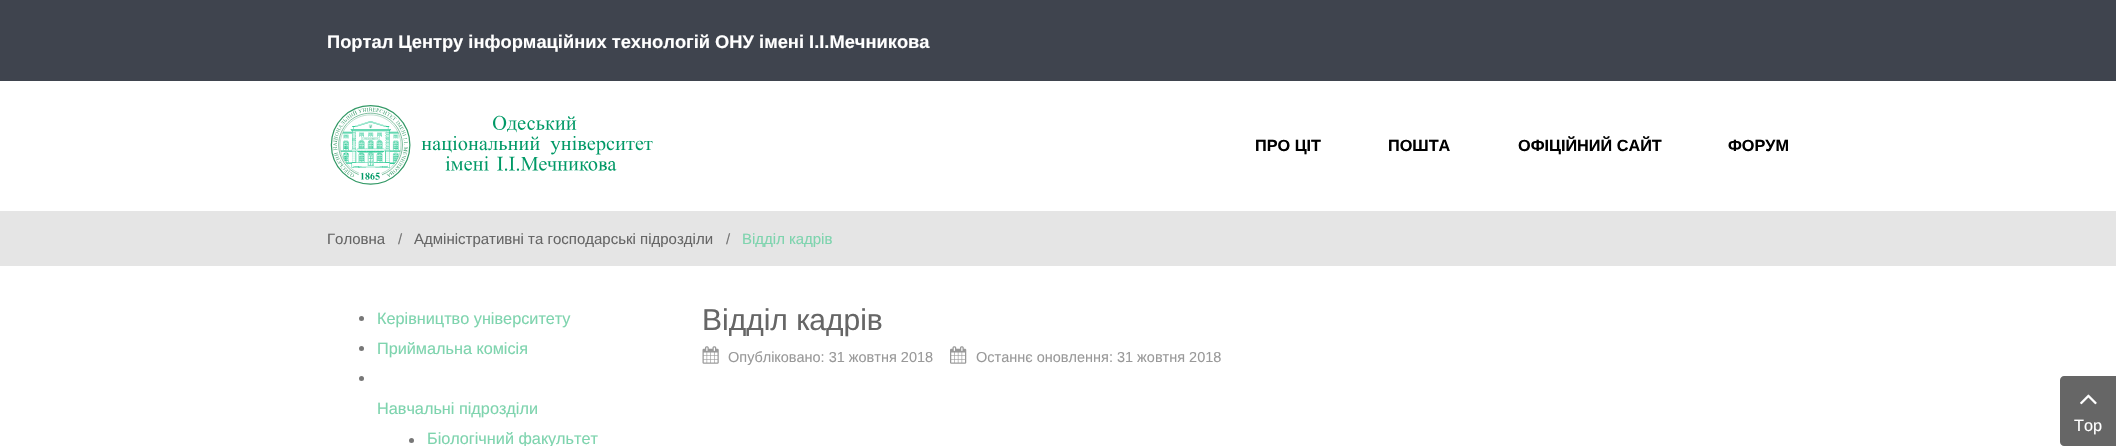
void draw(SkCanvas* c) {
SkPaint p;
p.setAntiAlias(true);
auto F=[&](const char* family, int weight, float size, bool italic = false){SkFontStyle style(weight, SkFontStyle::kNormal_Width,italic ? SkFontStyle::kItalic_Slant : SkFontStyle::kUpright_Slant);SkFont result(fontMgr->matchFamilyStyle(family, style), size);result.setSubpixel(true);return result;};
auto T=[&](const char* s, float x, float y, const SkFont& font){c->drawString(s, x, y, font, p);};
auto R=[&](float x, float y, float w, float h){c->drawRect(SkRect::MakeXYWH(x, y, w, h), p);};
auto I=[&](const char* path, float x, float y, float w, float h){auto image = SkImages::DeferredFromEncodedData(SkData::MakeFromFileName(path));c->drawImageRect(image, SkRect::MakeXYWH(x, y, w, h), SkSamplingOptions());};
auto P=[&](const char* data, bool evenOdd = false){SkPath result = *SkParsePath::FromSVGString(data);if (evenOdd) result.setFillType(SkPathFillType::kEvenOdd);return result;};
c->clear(0xffffffff);
p.setColor(0xff3f444e);
R(0,0,2116,81);
auto f1 = F("Liberation Sans",700,18.3);
p.setColor(0xffffffff);
T("Портал Центру інформаційних технологій ОНУ імені І.І.Мечникова",327,48,f1);
I("1.png",330,105,323,80);
auto f2 = F("Liberation Sans",700,16.25);
p.setColor(0xff000000);
T("ПРО ЦІТ",1255,151,f2);
T("ПОШТА",1388,151,f2);
T("ОФІЦІЙНИЙ САЙТ",1518,151,f2);
T("ФОРУМ",1728,151,f2);
p.setColor(0xffe5e5e5);
R(0,211,2116,55);
auto f3 = F("Liberation Sans",400,15);
p.setColor(0xff666666);
T("Головна",327,244,f3);
p.setColor(0xff777777);
T("/",398,244,f3);
p.setColor(0xff666666);
T("Адміністративні та господарські підрозділи",414,244,f3);
p.setColor(0xff777777);
T("/",726,244,f3);
p.setColor(0xff7ed4ae);
T("Відділ кадрів",742,244,f3);
p.setColor(0xff777777);
c->drawCircle(361.5,318.5,2.5,p);
auto f4 = F("Liberation Sans",400,16.25);
p.setColor(0xff7ed4ae);
T("Керівництво університету",377,324,f4);
p.setColor(0xff777777);
c->drawCircle(361.5,348.5,2.5,p);
p.setColor(0xff7ed4ae);
T("Приймальна комісія",377,354,f4);
p.setColor(0xff777777);
c->drawCircle(361.5,378.5,2.5,p);
p.setColor(0xff7ed4ae);
T("Навчальні підрозділи",377,414,f4);
p.setColor(0xff777777);
c->drawCircle(411.5,440.5,2.5,p);
p.setColor(0xff7ed4ae);
T("Біологічний факультет",427,444,f4);
auto f5 = F("Liberation Sans",400,30);
p.setColor(0xff666666);
T("Відділ кадрів",702,330,f5);
I("2.png",702,346,17,18);
auto f6 = F("Liberation Sans",400,14.5);
p.setColor(0xff999999);
T("Опубліковано: 31 жовтня 2018",728,362,f6);
I("3.png",950,346,17,18);
T("Останнє оновлення: 31 жовтня 2018",976,362,f6);
p.setColor(0xff666666);
c->drawPath(P("M2064 376h52v70h-52c-2 0-4-2-4-4v-62c0-2 2-4 4-4z"),p);
I("4.png",2080,394,17,11);
p.setColor(0xffffffff);
T("Top",2074,431,f4);
}
